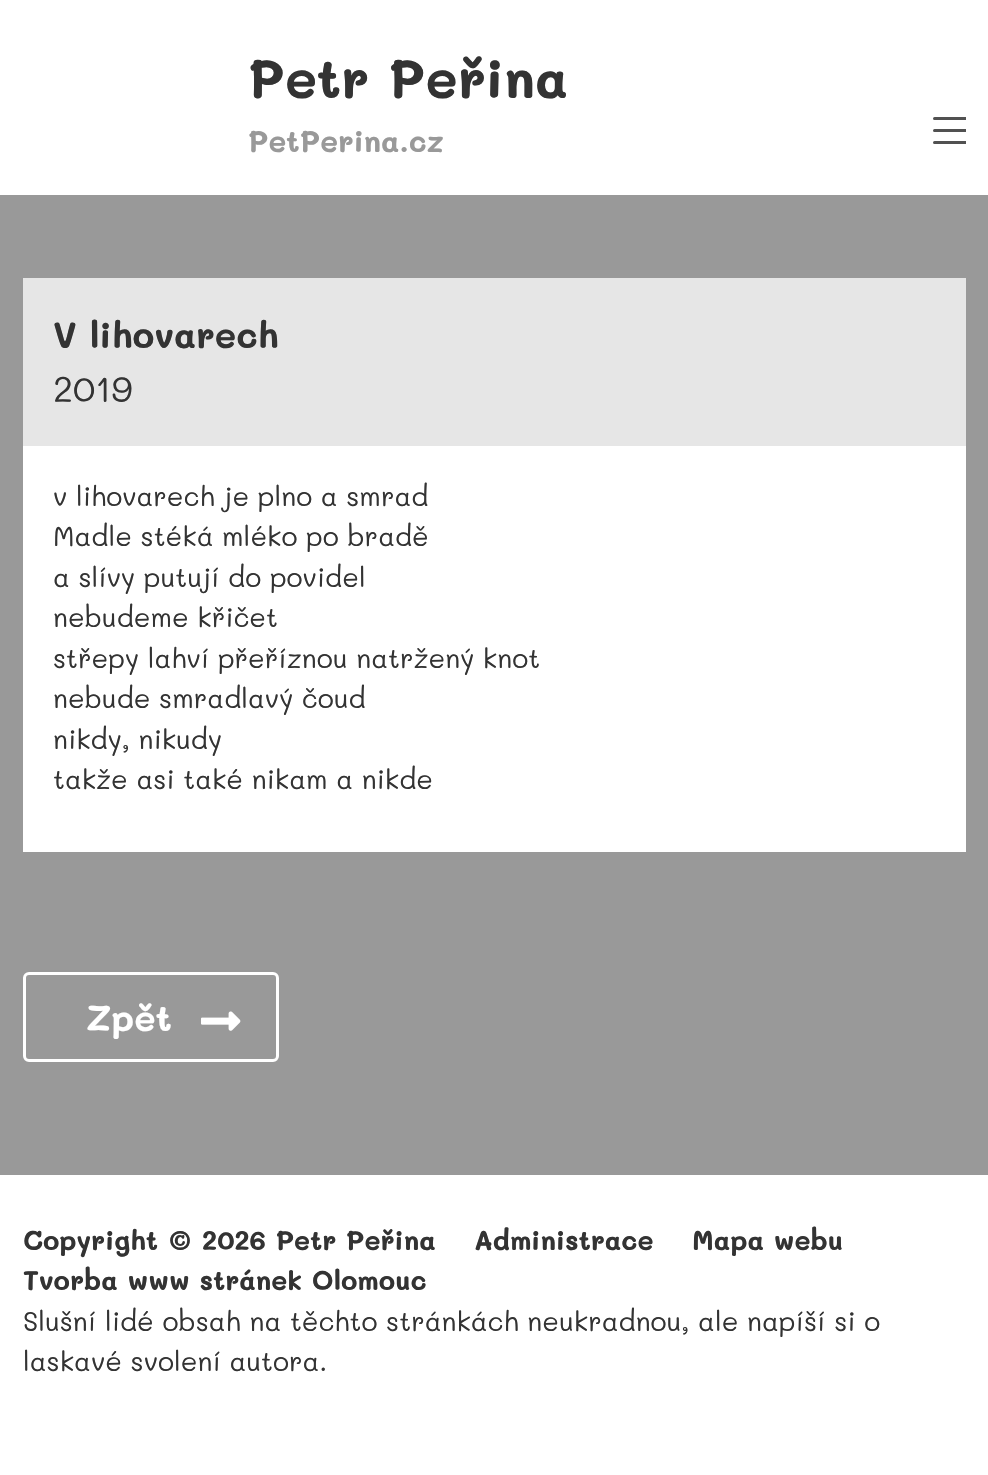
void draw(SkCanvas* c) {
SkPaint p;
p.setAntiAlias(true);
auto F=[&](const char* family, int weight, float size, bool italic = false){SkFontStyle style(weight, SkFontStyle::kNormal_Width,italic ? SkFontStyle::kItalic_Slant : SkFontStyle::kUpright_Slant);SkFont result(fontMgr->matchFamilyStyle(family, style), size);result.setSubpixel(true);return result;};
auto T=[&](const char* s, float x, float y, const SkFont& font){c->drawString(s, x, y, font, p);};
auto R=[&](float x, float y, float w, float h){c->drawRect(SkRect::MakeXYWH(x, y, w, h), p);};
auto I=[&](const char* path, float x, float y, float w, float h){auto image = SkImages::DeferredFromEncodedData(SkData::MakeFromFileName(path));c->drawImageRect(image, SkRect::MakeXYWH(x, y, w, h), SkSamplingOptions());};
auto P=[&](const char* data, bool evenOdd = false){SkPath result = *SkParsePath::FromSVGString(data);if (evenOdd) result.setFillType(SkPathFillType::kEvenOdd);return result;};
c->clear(0xff999999);
p.setColor(0xffffffff);
R(0,0,988,195);
auto f1 = F("Mali",700,54);
p.setColor(0xff333333);
T("Petr Peřina",248,98,f1);
auto f2 = F("Mali",700,30);
p.setColor(0xff999999);
T("PetPerina.cz",248,152,f2);
c->save();
c->clipRect(SkRect::MakeXYWH(921,108,45,45));
p.setStroke(true);
p.setStrokeWidth(3);
p.setStrokeCap(SkPaint::kRound_Cap);
p.setColor(0xff515151);
c->drawPath(P("M934.5 118.5h33m-33 12h33m-33 12h33"),p);
c->restore();
p.setStroke(false);
p.setColor(0xffe6e6e6);
R(23,278,943,168);
auto f3 = F("Mali",700,36);
p.setColor(0xff333333);
T("V lihovarech",53,348,f3);
auto f4 = F("Mali",400,36);
T("2019",53,402,f4);
p.setColor(0xffffffff);
R(23,446,943,406);
auto f5 = F("Mali",400,27);
p.setColor(0xff333333);
T("v lihovarech je plno a smrad",53,506,f5);
T("Madle stéká mléko po bradě",53,546,f5);
T("a slívy putují do povidel",53,587,f5);
T("nebudeme křičet",53,627,f5);
T("střepy lahví přeříznou natržený knot",53,668,f5);
T("nebude smradlavý čoud",53,708,f5);
T("nikdy, nikudy",53,749,f5);
T("takže asi také nikam a nikde",53,789,f5);
p.setStroke(true);
p.setStrokeCap(SkPaint::kButt_Cap);
p.setColor(0xffffffff);
c->drawRoundRect(SkRect::MakeXYWH(24.5,973.5,253,87),4.5,4.5,p);
p.setStroke(false);
T("Zpět",86,1031,f3);
I("1.png",201,1011,40,20);
R(0,1175,988,300);
auto f6 = F("Mali",700,27);
p.setColor(0xff333333);
T("Copyright © 2026 Petr Peřina",23,1250,f6);
T("Administrace",474,1250,f6);
T("Mapa webu",692,1250,f6);
T("Tvorba www stránek Olomouc",23,1290,f6);
T("Slušní lidé obsah na těchto stránkách neukradnou, ale napíší si o",23,1331,f5);
T("laskavé svolení autora.",23,1371,f5);
}
